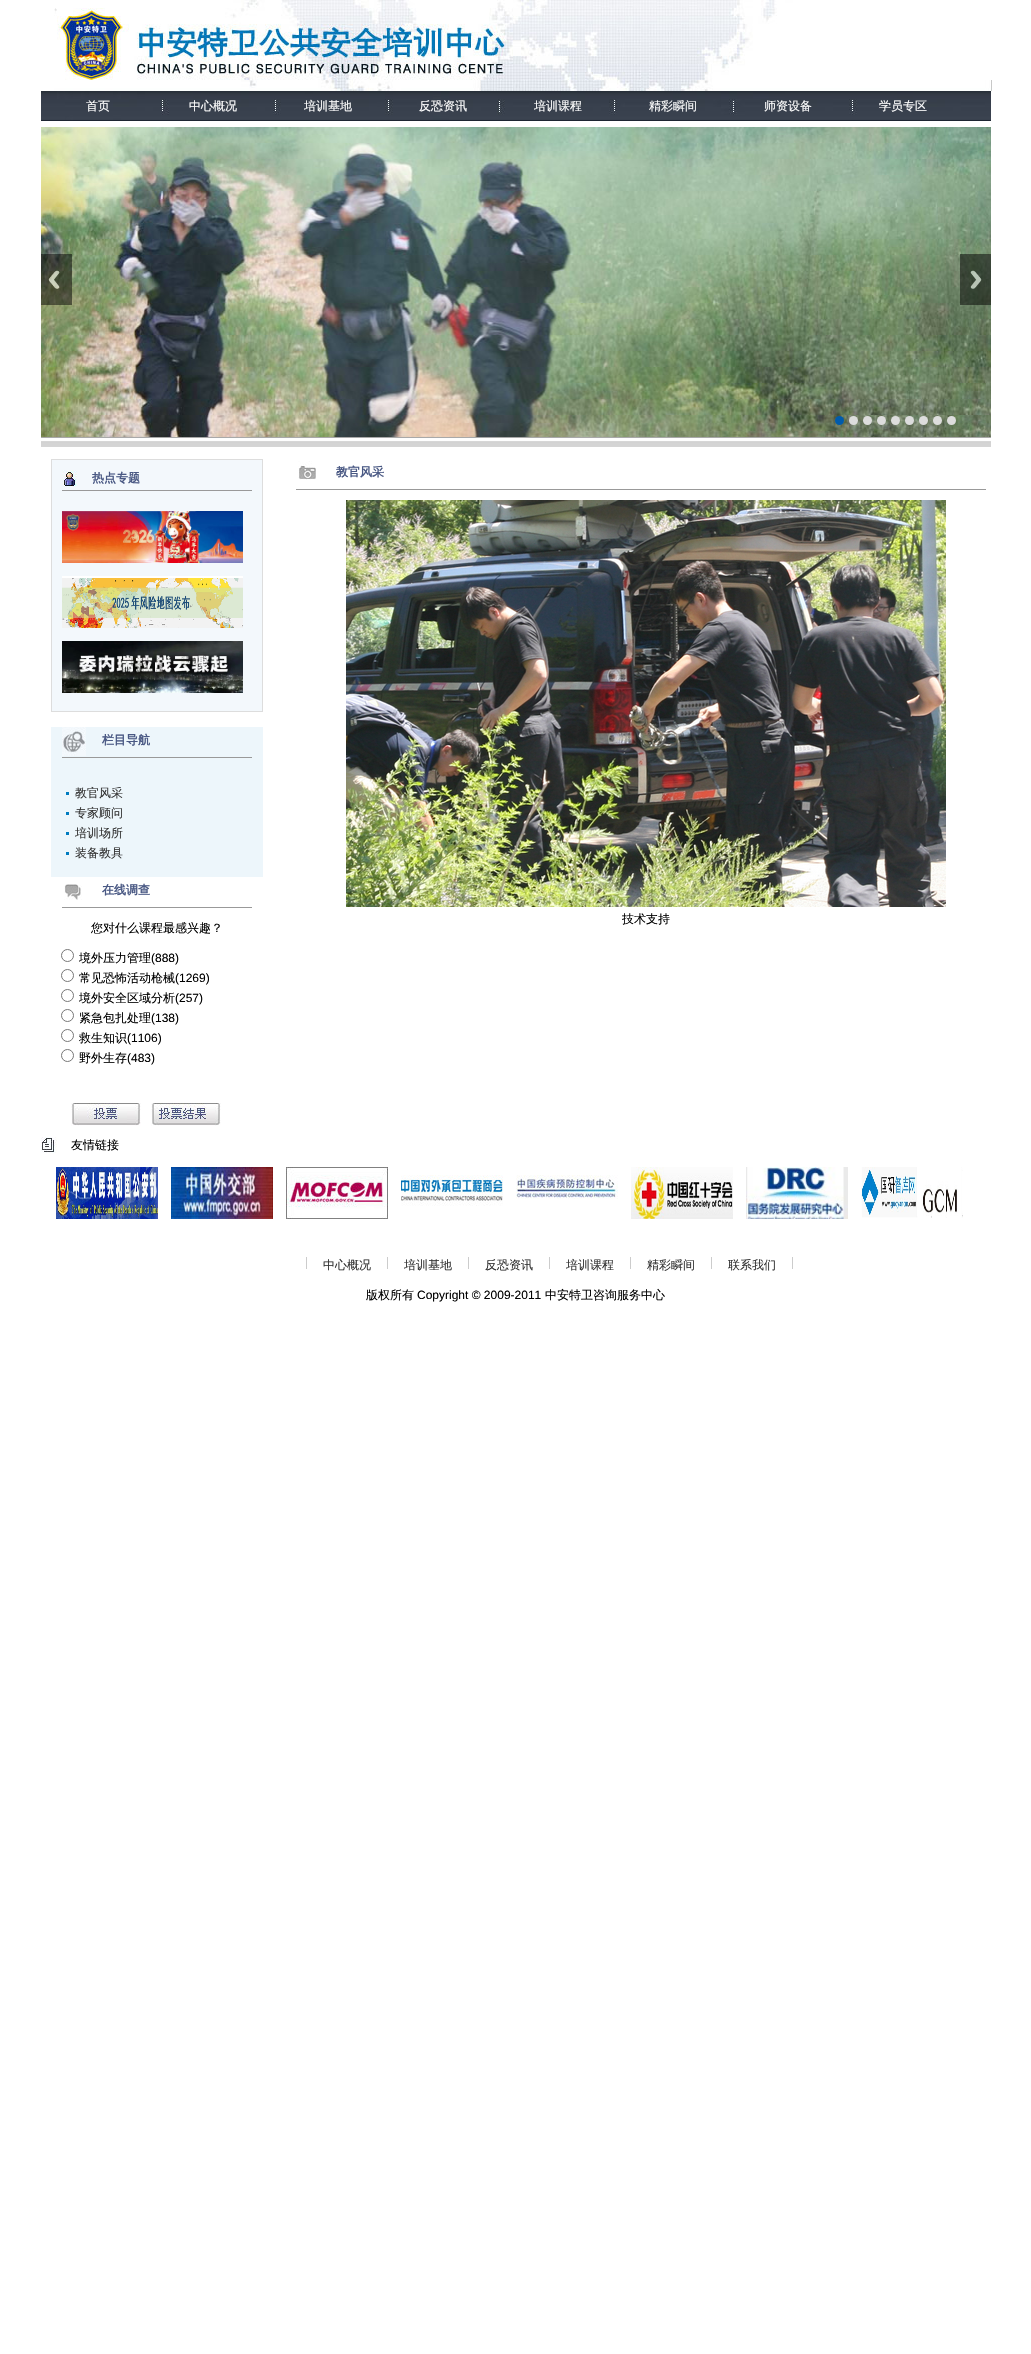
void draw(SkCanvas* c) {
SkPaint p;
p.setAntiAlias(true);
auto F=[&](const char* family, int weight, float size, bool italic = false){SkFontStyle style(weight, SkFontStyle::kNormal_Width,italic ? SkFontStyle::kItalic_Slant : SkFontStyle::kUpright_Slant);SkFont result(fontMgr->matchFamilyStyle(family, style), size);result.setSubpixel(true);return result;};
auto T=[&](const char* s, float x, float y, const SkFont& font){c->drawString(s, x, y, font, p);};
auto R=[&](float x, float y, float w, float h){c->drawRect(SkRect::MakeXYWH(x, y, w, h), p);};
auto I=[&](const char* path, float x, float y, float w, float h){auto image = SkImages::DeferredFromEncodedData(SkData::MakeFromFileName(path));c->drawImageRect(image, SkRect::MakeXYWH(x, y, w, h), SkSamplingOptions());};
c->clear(0xffffffff);
I("1.png",54,0,938,91);
I("2.png",41,91,950,30);
auto f1 = F("WenQuanYi Zen Hei",500,12);
p.setColor(0xffffffff);
T("首页",86,110,f1);
T("中心概况",189,110,f1);
T("培训基地",304,110,f1);
T("反恐资讯",419,110,f1);
T("培训课程",534,110,f1);
T("精彩瞬间",649,110,f1);
T("师资设备",764,110,f1);
T("学员专区",879,110,f1);
I("3.png",41,127,950,310);
I("4.png",41,254,31,51);
I("5.png",960,254,31,51);
p.setColor(0xff005bac);
c->drawCircle(839.5,420.5,4.5,p);
p.setColor(0xffdddddd);
c->drawCircle(853.5,420.5,4.5,p);
c->drawCircle(867.5,420.5,4.5,p);
c->drawCircle(881.5,420.5,4.5,p);
c->drawCircle(895.5,420.5,4.5,p);
c->drawCircle(909.5,420.5,4.5,p);
c->drawCircle(923.5,420.5,4.5,p);
c->drawCircle(937.5,420.5,4.5,p);
c->drawCircle(951.5,420.5,4.5,p);
I("6.png",41,437,950,10);
p.setColor(0xfff3f8fc);
c->drawRect(SkRect::MakeXYWH(51.5,459.5,211,252),p);
p.setStroke(true);
p.setStrokeWidth(1);
p.setColor(0xffdddddd);
c->drawRect(SkRect::MakeXYWH(51.5,459.5,211,252),p);
p.setStroke(false);
p.setColor(0xff999999);
R(62,490,190,1);
I("7.png",62,470,15,17);
auto f2 = F("WenQuanYi Zen Hei",700,12);
p.setColor(0xff4a5984);
T("热点专题",92,482,f2);
I("8.png",62,511,181,52);
I("9.png",62,576,181,52);
I("10.png",62,641,181,52);
p.setColor(0xffedf6fb);
R(51,727,212,150);
p.setColor(0xff999999);
R(62,757,190,1);
I("11.png",62,727,24,29);
p.setColor(0xff4a5984);
T("栏目导航",102,744,f2);
p.setColor(0xff017cc0);
R(66,792,3,3);
p.setColor(0xff333333);
T("教官风采",75,797,f1);
p.setColor(0xff017cc0);
R(66,812,3,3);
p.setColor(0xff333333);
T("专家顾问",75,817,f1);
p.setColor(0xff017cc0);
R(66,832,3,3);
p.setColor(0xff333333);
T("培训场所",75,837,f1);
p.setColor(0xff017cc0);
R(66,852,3,3);
p.setColor(0xff333333);
T("装备教具",75,857,f1);
p.setColor(0xff999999);
R(62,907,190,1);
I("12.png",64,884,18,16);
p.setColor(0xff4a5984);
T("在线调查",102,894,f2);
p.setColor(0xff000000);
T("您对什么课程最感兴趣？",91,932,f1);
p.setStroke(true);
p.setColor(0xff767676);
c->drawCircle(67.5,955.5,6,p);
p.setStroke(false);
p.setColor(0xff000000);
T("境外压力管理",79,962,f1);
auto f3 = F("Liberation Sans",400,12);
T("(888)",151,962,f3);
p.setStroke(true);
p.setColor(0xff767676);
c->drawCircle(67.5,975.5,6,p);
p.setStroke(false);
p.setColor(0xff000000);
T("常见恐怖活动枪械",79,982,f1);
T("(1269)",175,982,f3);
p.setStroke(true);
p.setColor(0xff767676);
c->drawCircle(67.5,995.5,6,p);
p.setStroke(false);
p.setColor(0xff000000);
T("境外安全区域分析",79,1002,f1);
T("(257)",175,1002,f3);
p.setStroke(true);
p.setColor(0xff767676);
c->drawCircle(67.5,1015.5,6,p);
p.setStroke(false);
p.setColor(0xff000000);
T("紧急包扎处理",79,1022,f1);
T("(138)",151,1022,f3);
p.setStroke(true);
p.setColor(0xff767676);
c->drawCircle(67.5,1035.5,6,p);
p.setStroke(false);
p.setColor(0xff000000);
T("救生知识",79,1042,f1);
T("(1106)",127,1042,f3);
p.setStroke(true);
p.setColor(0xff767676);
c->drawCircle(67.5,1055.5,6,p);
p.setStroke(false);
p.setColor(0xff000000);
T("野外生存",79,1062,f1);
T("(483)",127,1062,f3);
I("13.png",71,1103,70,23);
I("14.png",151,1103,70,23);
p.setColor(0xff999999);
R(296,489,690,1);
I("15.png",298,461,18,19);
p.setColor(0xff4a5984);
T("教官风采",336,476,f2);
I("16.png",346,500,600,407);
p.setColor(0xff000000);
T("技术支持",622,923,f1);
I("17.png",41,1137,16,16);
T("友情链接",71,1149,f1);
I("18.png",56,1167,102,52);
I("19.png",171,1167,102,52);
I("20.png",286,1167,102,52);
I("21.png",401,1175,102,31);
I("22.png",516,1175,102,24);
I("23.png",631,1167,102,52);
I("24.png",746,1167,102,52);
I("25.png",861,1167,102,51);
p.setColor(0xffcccccc);
R(306,1257,1,12);
R(387,1257,1,12);
p.setColor(0xff333333);
T("中心概况",323,1269,f1);
p.setColor(0xffcccccc);
R(468,1257,1,12);
p.setColor(0xff333333);
T("培训基地",404,1269,f1);
p.setColor(0xffcccccc);
R(549,1257,1,12);
p.setColor(0xff333333);
T("反恐资讯",485,1269,f1);
p.setColor(0xffcccccc);
R(630,1257,1,12);
p.setColor(0xff333333);
T("培训课程",566,1269,f1);
p.setColor(0xffcccccc);
R(711,1257,1,12);
p.setColor(0xff333333);
T("精彩瞬间",647,1269,f1);
p.setColor(0xffcccccc);
R(792,1257,1,12);
p.setColor(0xff333333);
T("联系我们",728,1269,f1);
p.setColor(0xff000000);
T("版权所有",366,1299,f1);
T("Copyright © 2009-2011",417,1299,f3);
T("中安特卫咨询服务中心",545,1299,f1);
}
